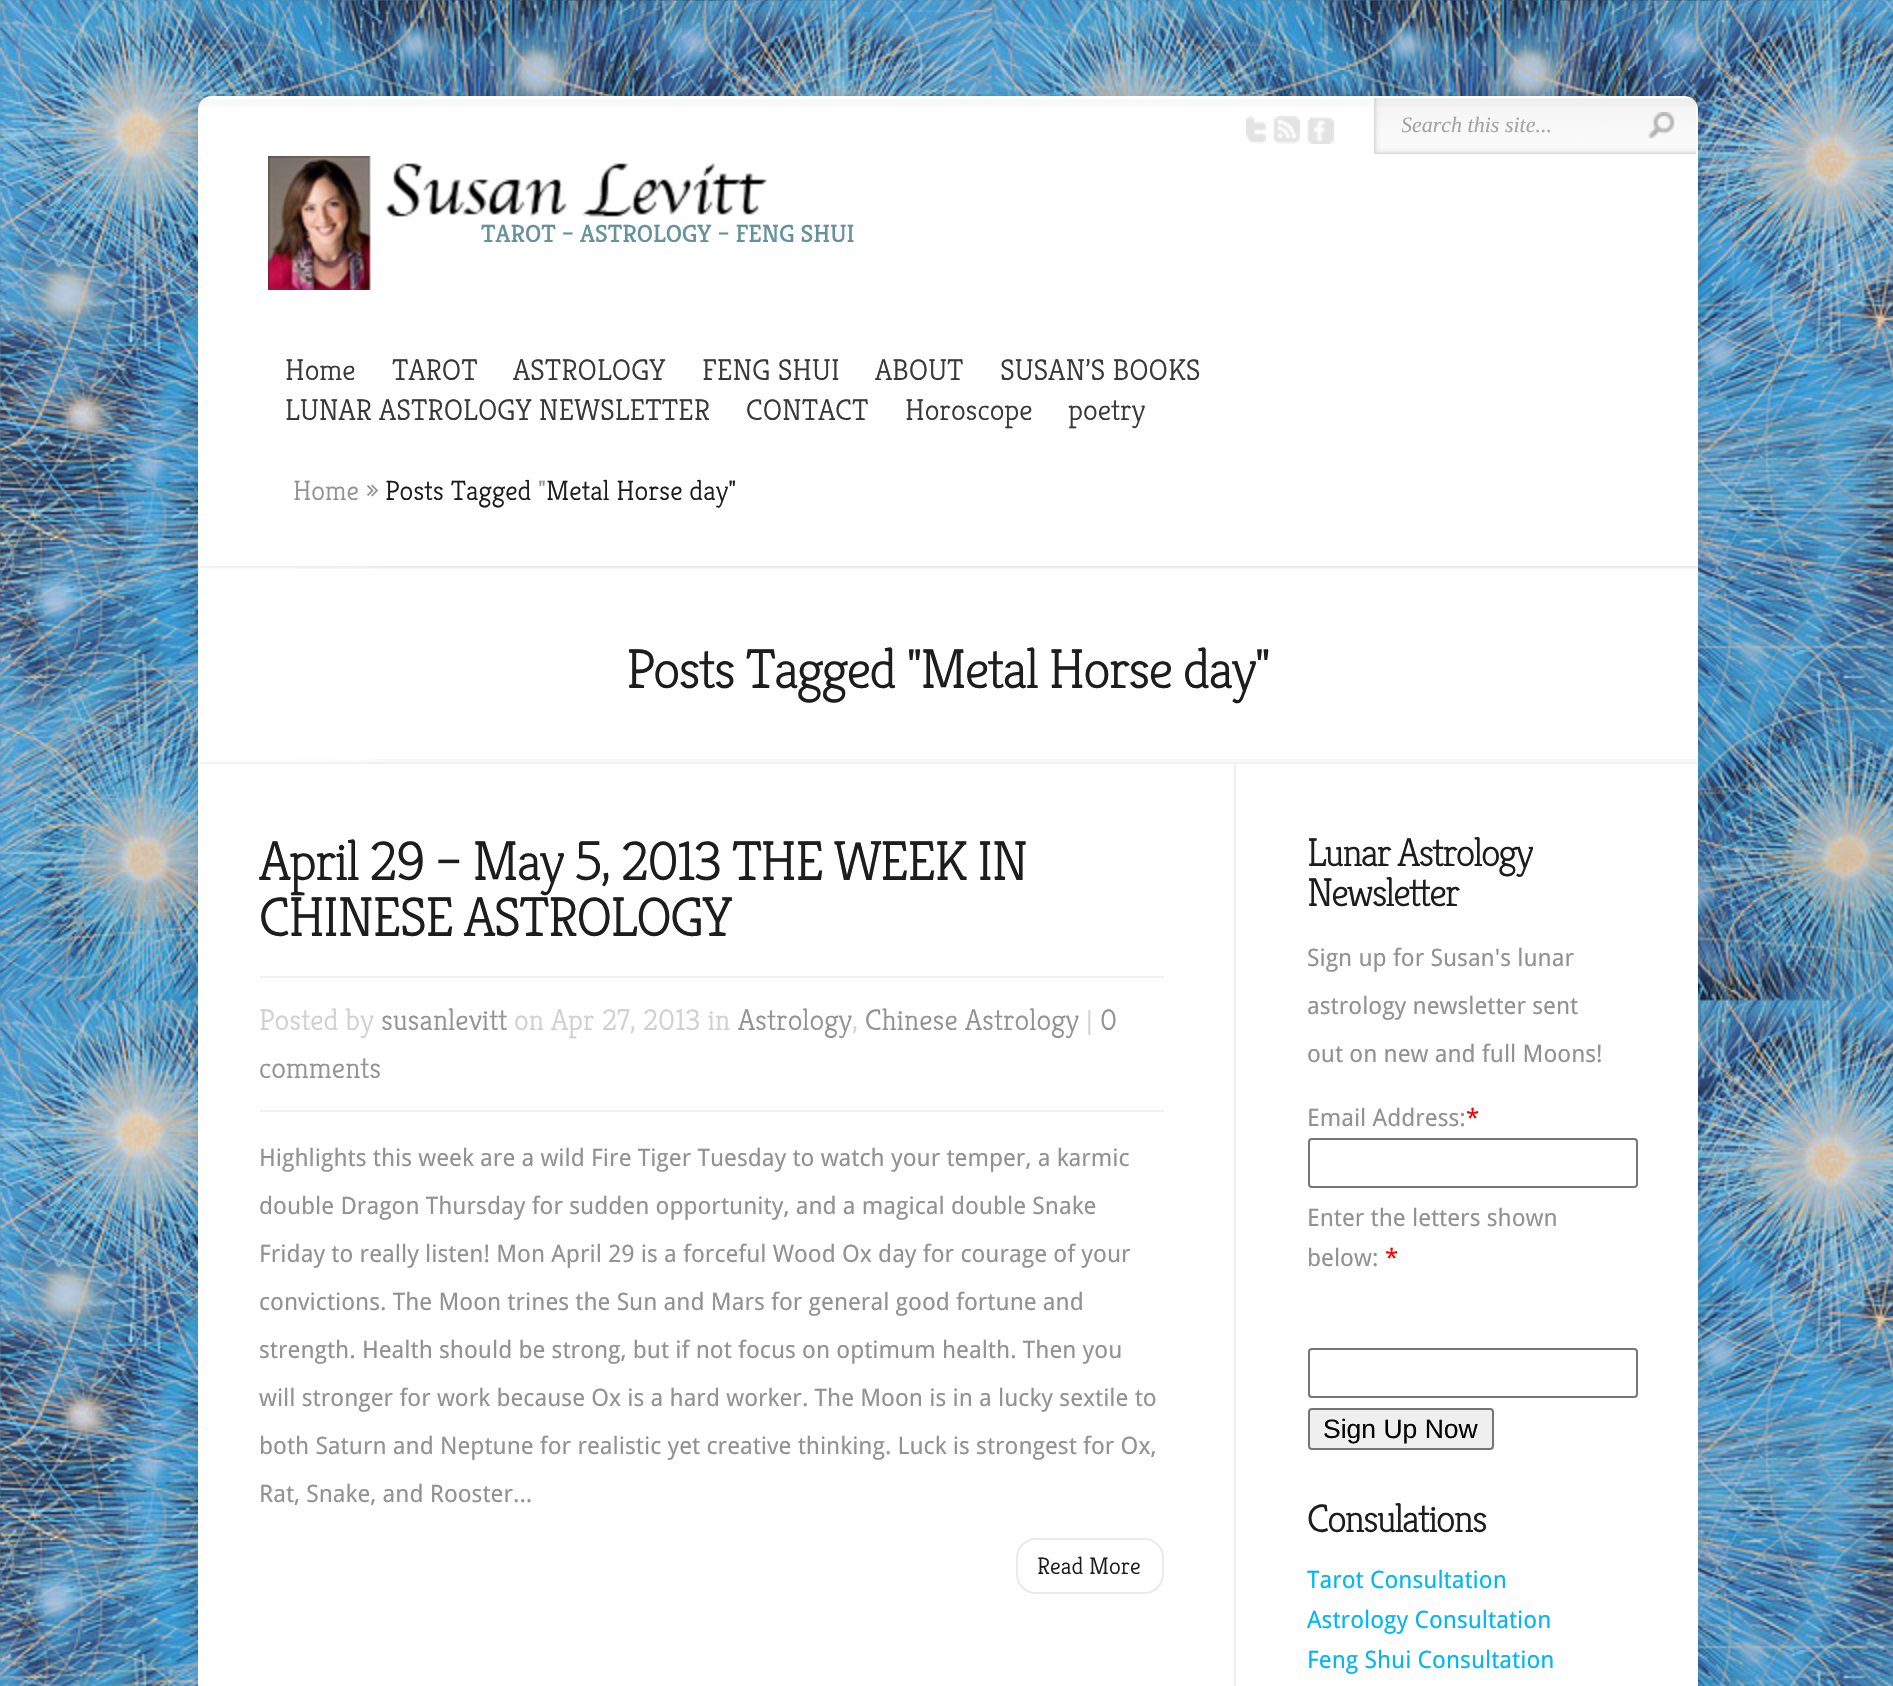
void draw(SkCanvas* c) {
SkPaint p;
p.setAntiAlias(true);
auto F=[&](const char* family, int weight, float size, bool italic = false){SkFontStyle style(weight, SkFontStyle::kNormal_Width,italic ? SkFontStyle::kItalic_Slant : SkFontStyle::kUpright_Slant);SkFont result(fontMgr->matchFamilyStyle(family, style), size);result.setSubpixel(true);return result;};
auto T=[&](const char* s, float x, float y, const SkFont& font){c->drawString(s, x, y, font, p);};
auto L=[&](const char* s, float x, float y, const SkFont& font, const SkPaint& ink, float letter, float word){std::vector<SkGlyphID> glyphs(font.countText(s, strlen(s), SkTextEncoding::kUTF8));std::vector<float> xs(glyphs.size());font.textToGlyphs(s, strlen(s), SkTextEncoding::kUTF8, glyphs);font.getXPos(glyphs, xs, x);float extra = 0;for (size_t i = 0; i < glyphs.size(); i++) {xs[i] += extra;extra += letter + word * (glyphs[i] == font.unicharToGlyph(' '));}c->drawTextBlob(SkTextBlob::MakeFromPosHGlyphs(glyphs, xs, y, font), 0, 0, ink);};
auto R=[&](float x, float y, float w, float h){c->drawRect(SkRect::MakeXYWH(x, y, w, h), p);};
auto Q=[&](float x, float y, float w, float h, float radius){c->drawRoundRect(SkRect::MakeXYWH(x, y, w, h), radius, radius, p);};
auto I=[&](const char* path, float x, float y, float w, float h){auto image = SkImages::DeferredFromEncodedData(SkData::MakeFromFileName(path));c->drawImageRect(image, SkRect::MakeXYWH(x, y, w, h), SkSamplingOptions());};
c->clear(0xffffffff);
I("1.png",0,0,1893,1686);
p.setColor(0x1a000000);
p.setMaskFilter(SkMaskFilter::MakeBlur(kNormal_SkBlurStyle, 6));
c->drawRoundRect(SkRect::MakeXYWH(198,96,1500,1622),14,14,p);
p.setMaskFilter(nullptr);
p.setColor(0xffffffff);
Q(198,96,1500,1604,14);
I("2.png",199,99,1498,8);
I("3.png",1246,116,20,28);
I("4.png",1273,116,27,28);
I("5.png",1306,116,28,28);
I("6.png",1374,98,322,56);
c->save();
c->clipRect(SkRect::MakeXYWH(1402,112,228,24));
auto f1 = F("Liberation Serif",400,22,true);
p.setColor(0xffa3a3a3);
T("Search this site...",1401,132,f1);
c->restore();
I("7.png",1648,112,28,27);
I("8.png",268,156,499,134);
auto f2 = F("Kreon",400,25);
p.setColor(0xff66929c);
T("TAROT – ASTROLOGY – FENG SHUI",481,242,f2);
auto f3 = F("Kreon",300,30);
p.setColor(0xff393939);
T("Home",285,380,f3);
T("TAROT",392,380,f3);
T("ASTROLOGY",513,380,f3);
T("FENG SHUI",702,380,f3);
T("ABOUT",875,380,f3);
T("SUSAN’S BOOKS",1000,380,f3);
T("LUNAR ASTROLOGY NEWSLETTER",285,420,f3);
T("CONTACT",746,420,f3);
T("Horoscope",905,420,f3);
T("poetry",1068,420,f3);
auto f4 = F("Kreon",300,28);
p.setColor(0xff929292);
T("Home »",293,500,f4);
p.setColor(0xff1d1d1d);
T("Posts Tagged",385,500,f4);
p.setColor(0xff929292);
T("\"",538,500,f4);
p.setColor(0xff1d1d1d);
T("Metal Horse day\"",546,500,f4);
I("9.png",200,566,1498,3);
I("10.png",200,759,1498,5);
auto f5 = F("Kreon",300,56);
L("Posts Tagged \"Metal Horse day\"",626,688,f5,p,-2,0);
p.setColor(0xfff0f0f0);
R(1234,764,2,922);
p.setColor(0xff1d1d1d);
L("April 29 – May 5, 2013 THE WEEK IN",259,880,f5,p,-2,0);
L("CHINESE ASTROLOGY",259,936,f5,p,-2,0);
p.setColor(0xfff0f0f0);
R(260,976,904,2);
R(260,1110,904,2);
p.setColor(0xffd0d0d0);
T("Posted by",259,1030,f3);
p.setColor(0xff929292);
T("susanlevitt",381,1030,f3);
p.setColor(0xffd0d0d0);
T("on Apr 27, 2013 in",514,1030,f3);
p.setColor(0xff929292);
T("Astrology",738,1030,f3);
p.setColor(0xffd0d0d0);
T(",",852,1030,f3);
p.setColor(0xff929292);
T("Chinese Astrology",865,1030,f3);
p.setColor(0xffd0d0d0);
T("|",1086,1030,f3);
p.setColor(0xff929292);
T("0",1100,1030,f3);
T("comments",259,1078,f3);
auto f6 = F("Droid Sans",400,24);
T("Highlights this week are a wild Fire Tiger Tuesday to watch your temper, a karmic",259,1166,f6);
T("double Dragon Thursday for sudden opportunity, and a magical double Snake",259,1214,f6);
T("Friday to really listen! Mon April 29 is a forceful Wood Ox day for courage of your",259,1262,f6);
T("convictions. The Moon trines the Sun and Mars for general good fortune and",259,1310,f6);
T("strength. Health should be strong, but if not focus on optimum health. Then you",259,1358,f6);
T("will stronger for work because Ox is a hard worker. The Moon is in a lucky sextile to",259,1406,f6);
T("both Saturn and Neptune for realistic yet creative thinking. Luck is strongest for Ox,",259,1454,f6);
T("Rat, Snake, and Rooster...",259,1502,f6);
p.setStroke(true);
p.setStrokeWidth(2);
p.setColor(0xffeaeaea);
c->drawRoundRect(SkRect::MakeXYWH(1017,1539,146,54),19,19,p);
auto f7 = F("Kreon",300,24);
p.setStroke(false);
p.setColor(0xff1d1d1d);
T("Read More",1037,1574,f7);
auto f8 = F("Kreon",300,40);
L("Lunar Astrology",1307,866,f8,p,-2,0);
L("Newsletter",1307,906,f8,p,-2,0);
p.setColor(0xff929292);
T("Sign up for Susan's lunar",1307,966,f6);
T("astrology newsletter sent",1307,1014,f6);
T("out on new and full Moons!",1307,1062,f6);
T("Email Address:",1307,1126,f6);
p.setColor(0xffff0000);
T("*",1466,1126,f6);
p.setStroke(true);
p.setColor(0xff767676);
c->drawRoundRect(SkRect::MakeXYWH(1309,1139,328,48),3,3,p);
p.setStroke(false);
p.setColor(0xff929292);
T("Enter the letters shown",1307,1226,f6);
T("below:",1307,1266,f6);
p.setColor(0xffff0000);
T("*",1385,1266,f6);
p.setStroke(true);
p.setColor(0xff767676);
c->drawRoundRect(SkRect::MakeXYWH(1309,1349,328,48),3,3,p);
p.setStroke(false);
p.setColor(0xffefefef);
c->drawRoundRect(SkRect::MakeXYWH(1309,1409,184,40),3,3,p);
p.setStroke(true);
p.setColor(0xff767676);
c->drawRoundRect(SkRect::MakeXYWH(1309,1409,184,40),3,3,p);
auto f9 = F("Liberation Sans",400,26.5);
p.setStroke(false);
p.setColor(0xff000000);
T("Sign Up Now",1323,1438,f9);
p.setColor(0xff1d1d1d);
L("Consulations",1307,1532,f8,p,-2,0);
p.setColor(0xff00b7f3);
T("Tarot Consultation",1307,1588,f6);
T("Astrology Consultation",1307,1628,f6);
T("Feng Shui Consultation",1307,1668,f6);
}
